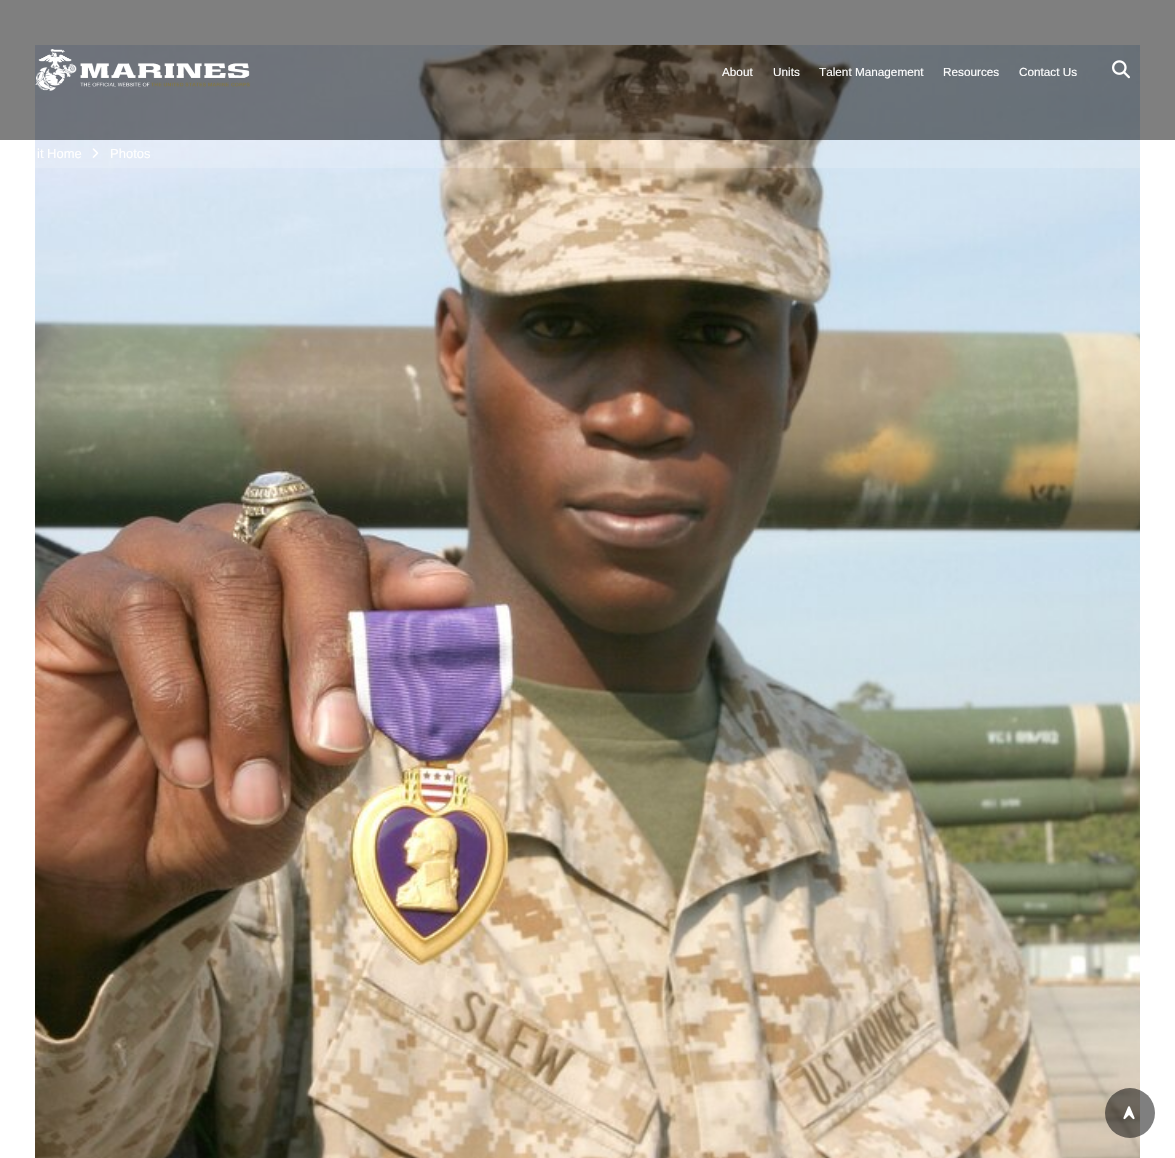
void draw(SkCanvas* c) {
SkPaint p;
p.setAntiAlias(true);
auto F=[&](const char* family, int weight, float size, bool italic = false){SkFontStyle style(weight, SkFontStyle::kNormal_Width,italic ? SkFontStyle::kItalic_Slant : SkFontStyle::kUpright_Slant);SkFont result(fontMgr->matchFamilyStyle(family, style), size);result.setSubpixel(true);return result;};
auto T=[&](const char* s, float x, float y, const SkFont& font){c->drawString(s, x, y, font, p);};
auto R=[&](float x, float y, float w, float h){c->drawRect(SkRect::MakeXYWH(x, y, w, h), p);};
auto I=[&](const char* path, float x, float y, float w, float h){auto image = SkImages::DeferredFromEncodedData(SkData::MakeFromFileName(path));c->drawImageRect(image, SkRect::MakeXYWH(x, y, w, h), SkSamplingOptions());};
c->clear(0xffffffff);
I("1.png",35,45,1105,1113);
p.setColor(0x80000000);
R(0,0,1175,140);
I("2.png",35,49,215,42);
auto f1 = F("Liberation Sans",400,11.75);
p.setColor(0xffffffff);
T("About",722,76,f1);
T("Units",773,76,f1);
T("Talent Management",819,76,f1);
T("Resources",943,76,f1);
T("Contact Us",1019,76,f1);
I("3.png",1112,60,18,19);
p.setColor(0x2bffffff);
R(35,140,1105,28);
auto f2 = F("Liberation Sans",400,13);
p.setColor(0xffffffff);
T("it Home",37,158,f2);
I("4.png",92,148,7,10);
T("Photos",110,158,f2);
p.setColor(0x80000000);
c->drawCircle(1130,1113,25,p);
I("5.png",1123,1106,12,14);
}
